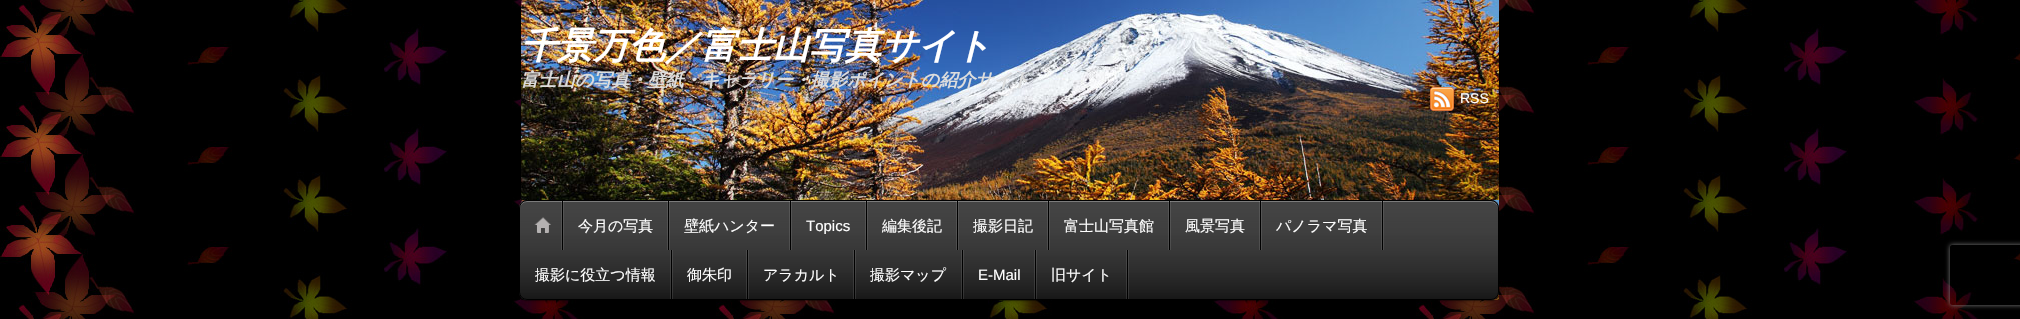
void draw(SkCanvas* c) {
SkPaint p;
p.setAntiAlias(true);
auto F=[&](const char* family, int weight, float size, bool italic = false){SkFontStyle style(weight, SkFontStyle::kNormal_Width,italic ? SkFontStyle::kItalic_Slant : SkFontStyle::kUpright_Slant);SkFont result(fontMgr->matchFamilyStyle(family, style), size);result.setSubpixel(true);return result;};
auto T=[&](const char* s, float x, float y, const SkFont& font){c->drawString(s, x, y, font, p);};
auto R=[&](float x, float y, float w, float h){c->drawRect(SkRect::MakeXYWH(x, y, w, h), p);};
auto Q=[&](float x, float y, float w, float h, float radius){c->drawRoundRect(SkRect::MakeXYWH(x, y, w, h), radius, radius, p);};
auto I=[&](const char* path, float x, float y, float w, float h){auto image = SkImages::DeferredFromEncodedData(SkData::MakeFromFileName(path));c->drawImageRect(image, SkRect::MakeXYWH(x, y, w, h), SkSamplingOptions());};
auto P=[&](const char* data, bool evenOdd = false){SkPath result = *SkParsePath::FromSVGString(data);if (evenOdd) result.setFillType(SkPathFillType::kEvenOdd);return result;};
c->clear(0xffffffff);
I("1.png",0,0,2020,319);
I("2.png",521,0,978,300);
auto f1 = F("WenQuanYi Zen Hei",700,36,true);
p.setColor(0xffffffff);
T("千景万色／富士山写真サイト",521,58,f1);
auto f2 = F("WenQuanYi Zen Hei",700,18,true);
p.setColor(0xffdddddd);
T("富士山の写真・壁紙・ギャラリー・撮影ポイントの紹介サイト",521,86,f2);
I("3.png",1430,87,24,24);
auto f3 = F("Liberation Sans",400,14);
p.setColor(0xffffffff);
T("RSS",1460,103,f3);
p.setColor(0x4d000000);
p.setMaskFilter(SkMaskFilter::MakeBlur(kNormal_SkBlurStyle, 1.5));
c->drawRoundRect(SkRect::MakeXYWH(519,201,980,100),8,8,p);
p.setMaskFilter(nullptr);
c->drawPath(P("M519 292c0 5 3 9 8 9h964c5 0 8-4 8-9c0 4-4 8-8 8h-964c-4 0-8-4-8-8z"),p);
p.setColor(0xff222222);
Q(519,200,980,100,8);
c->save();
c->clipPath(P("M527 200h964c4.5 0 8 3.5 8 8v84c0 4.5-3.5 8-8 8h-964c-4.5 0-8-3.5-8-8v-84c0-4.5 3.5-8 8-8z"),true);
{
const SkColor colors[] = {0x26ffffff,0x4d000000};
const float stops[] = {0,1};
const SkPoint ends[] = {{1009,201}, {1009,299}};
p.setShader(SkGradientShader::MakeLinear(ends, colors, stops, 2, SkTileMode::kClamp));
p.setAlpha(255);
}
R(519,201,980,98);
c->restore();
p.setShader(nullptr);
p.setColor(0xff7b7b7b);
c->drawPath(P("M527 202h964c4 0 7 3 7 7v-1c0-4-3-7-7-7h-964c-4 0-7 3-7 7v1c0-4 3-7 7-7z"),p);
p.setStroke(true);
p.setStrokeWidth(1);
p.setColor(0xff000000);
c->drawRoundRect(SkRect::MakeXYWH(519.5,200.5,979,99),7.5,7.5,p);
p.setStroke(false);
p.setColor(0x1affffff);
R(563,201,1,49);
R(561,201,1,49);
p.setColor(0xff000000);
R(562,201,1,49);
I("4.png",534,217,17,16);
p.setColor(0x1affffff);
R(669,201,1,49);
R(667,201,1,49);
p.setColor(0xff000000);
R(668,201,1,49);
auto f4 = F("WenQuanYi Zen Hei",500,15);
p.setColor(0xffffffff);
T("今月の写真",578,231,f4);
p.setColor(0x1affffff);
R(791,201,1,49);
R(789,201,1,49);
p.setColor(0xff000000);
R(790,201,1,49);
p.setColor(0xffffffff);
T("壁紙ハンター",684,231,f4);
p.setColor(0x1affffff);
R(867,201,1,49);
R(865,201,1,49);
p.setColor(0xff000000);
R(866,201,1,49);
auto f5 = F("Liberation Sans",400,15);
p.setColor(0xffffffff);
T("Topics",806,231,f5);
p.setColor(0x1affffff);
R(958,201,1,49);
R(956,201,1,49);
p.setColor(0xff000000);
R(957,201,1,49);
p.setColor(0xffffffff);
T("編集後記",882,231,f4);
p.setColor(0x1affffff);
R(1049,201,1,49);
R(1047,201,1,49);
p.setColor(0xff000000);
R(1048,201,1,49);
p.setColor(0xffffffff);
T("撮影日記",973,231,f4);
p.setColor(0x1affffff);
R(1170,201,1,49);
R(1168,201,1,49);
p.setColor(0xff000000);
R(1169,201,1,49);
p.setColor(0xffffffff);
T("富士山写真館",1064,231,f4);
p.setColor(0x1affffff);
R(1261,201,1,49);
R(1259,201,1,49);
p.setColor(0xff000000);
R(1260,201,1,49);
p.setColor(0xffffffff);
T("風景写真",1185,231,f4);
p.setColor(0x1affffff);
R(1383,201,1,49);
R(1381,201,1,49);
p.setColor(0xff000000);
R(1382,201,1,49);
p.setColor(0xffffffff);
T("パノラマ写真",1276,231,f4);
p.setColor(0x1affffff);
R(672,250,1,49);
R(670,250,1,49);
p.setColor(0xff000000);
R(671,250,1,49);
p.setColor(0xffffffff);
T("撮影に役立つ情報",535,280,f4);
p.setColor(0x1affffff);
R(748,250,1,49);
R(746,250,1,49);
p.setColor(0xff000000);
R(747,250,1,49);
p.setColor(0xffffffff);
T("御朱印",687,280,f4);
p.setColor(0x1affffff);
R(855,250,1,49);
R(853,250,1,49);
p.setColor(0xff000000);
R(854,250,1,49);
p.setColor(0xffffffff);
T("アラカルト",763,280,f4);
p.setColor(0x1affffff);
R(963,250,1,49);
R(961,250,1,49);
p.setColor(0xff000000);
R(962,250,1,49);
p.setColor(0xffffffff);
T("撮影マップ",870,280,f4);
p.setColor(0x1affffff);
R(1036,250,1,49);
R(1034,250,1,49);
p.setColor(0xff000000);
R(1035,250,1,49);
p.setColor(0xffffffff);
T("E-Mail",978,280,f5);
p.setColor(0x1affffff);
R(1128,250,1,49);
R(1126,250,1,49);
p.setColor(0xff000000);
R(1127,250,1,49);
p.setColor(0xffffffff);
T("旧サイト",1051,280,f4);
c->save();
c->clipPath(P("M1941 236h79v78h-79zm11 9h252c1 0 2 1 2 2v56c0 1-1 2-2 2h-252c-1 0-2-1-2-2v-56c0-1 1-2 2-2z",true),true);
p.setColor(0xff808080);
p.setMaskFilter(SkMaskFilter::MakeBlur(kNormal_SkBlurStyle, 2.5));
c->drawRoundRect(SkRect::MakeXYWH(1950,245,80,60),2,2,p);
p.setMaskFilter(nullptr);
c->restore();
}
